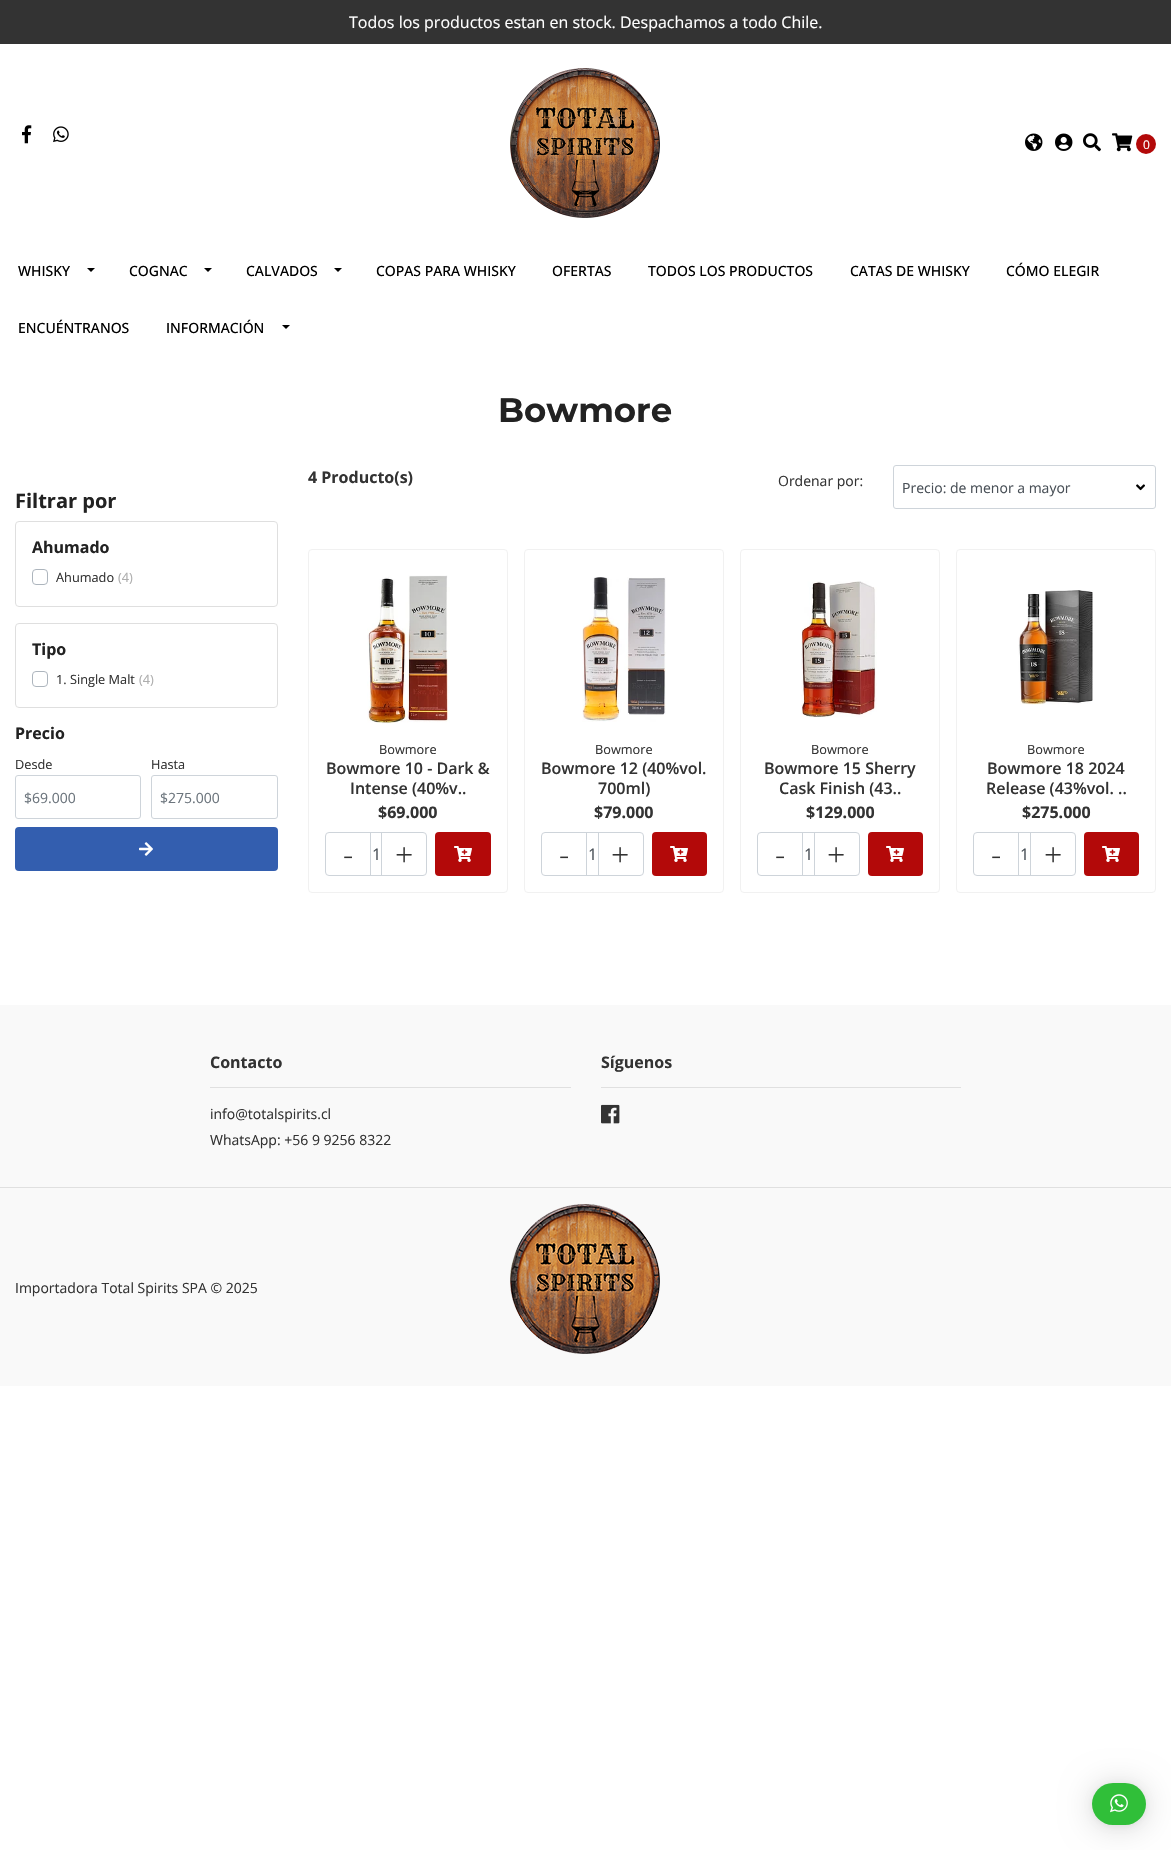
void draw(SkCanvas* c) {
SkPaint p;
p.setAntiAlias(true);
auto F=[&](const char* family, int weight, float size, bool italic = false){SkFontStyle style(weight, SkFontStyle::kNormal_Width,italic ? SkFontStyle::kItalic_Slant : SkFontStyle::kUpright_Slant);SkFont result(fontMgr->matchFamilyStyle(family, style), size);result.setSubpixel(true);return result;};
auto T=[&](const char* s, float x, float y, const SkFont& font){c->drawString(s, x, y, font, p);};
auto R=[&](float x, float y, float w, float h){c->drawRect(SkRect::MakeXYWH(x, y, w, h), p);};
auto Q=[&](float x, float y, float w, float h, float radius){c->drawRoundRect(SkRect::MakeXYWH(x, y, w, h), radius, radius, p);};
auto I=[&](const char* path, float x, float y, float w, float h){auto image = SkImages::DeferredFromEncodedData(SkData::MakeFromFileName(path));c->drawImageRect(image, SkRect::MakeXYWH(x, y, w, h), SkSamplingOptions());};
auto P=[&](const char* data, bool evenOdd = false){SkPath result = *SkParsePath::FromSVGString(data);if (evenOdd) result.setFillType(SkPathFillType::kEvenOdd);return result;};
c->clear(0xffffffff);
p.setColor(0xff333333);
R(0,0,1171,44);
auto f1 = F("Open Sans",400,16);
p.setColor(0xffffffff);
T("Todos los productos estan en stock. Despachamos a todo Chile.",349,28,f1);
I("1.png",22,125,10,19);
I("2.png",53,126,16,17);
I("3.png",510,68,150,150);
I("4.png",1025,133,18,18);
I("5.png",1055,133,18,18);
I("6.png",1083,133,18,19);
I("7.png",1112,133,21,19);
p.setColor(0xffb30909);
c->drawCircle(1146,144,10,p);
auto f2 = F("Open Sans",400,12);
p.setColor(0xffffffff);
T("0",1143,149,f2);
auto f3 = F("Open Sans",500,14);
p.setColor(0xff000000);
T("WHISKY",18,276,f3);
c->drawPath(P("M87 268h8l-4 4z"),p);
T("COGNAC",129,276,f3);
c->drawPath(P("M204 268h8l-4 4z"),p);
T("CALVADOS",246,276,f3);
c->drawPath(P("M334 268h8l-4 4z"),p);
T("COPAS PARA WHISKY",376,276,f3);
T("OFERTAS",552,276,f3);
T("TODOS LOS PRODUCTOS",648,276,f3);
T("CATAS DE WHISKY",850,276,f3);
T("CÓMO ELEGIR",1006,276,f3);
T("ENCUÉNTRANOS",18,333,f3);
T("INFORMACIÓN",166,333,f3);
c->drawPath(P("M282 325h8l-4 4z"),p);
auto f4 = F("Montserrat",700,34);
p.setColor(0xff222222);
T("Bowmore",498,422,f4);
auto f5 = F("Open Sans",700,20);
T("Filtrar por",15,508,f5);
p.setStroke(true);
p.setStrokeWidth(1);
p.setColor(0xffdfdfdf);
c->drawRoundRect(SkRect::MakeXYWH(15.5,521.5,262,85),3.5,3.5,p);
auto f6 = F("Open Sans",700,16);
p.setStroke(false);
p.setColor(0xff222222);
T("Ahumado",32,553,f6);
p.setStroke(true);
p.setColor(0xffadb5bd);
c->drawRoundRect(SkRect::MakeXYWH(32.5,569.5,15,15),3.5,3.5,p);
auto f7 = F("Open Sans",400,12.75);
p.setStroke(false);
p.setColor(0xff333333);
T("Ahumado",56,582,f7);
p.setColor(0xffaeaeae);
T("(4)",118,582,f7);
p.setStroke(true);
p.setColor(0xffdfdfdf);
c->drawRoundRect(SkRect::MakeXYWH(15.5,623.5,262,84),3.5,3.5,p);
p.setStroke(false);
p.setColor(0xff222222);
T("Tipo",32,655,f6);
p.setStroke(true);
p.setColor(0xffadb5bd);
c->drawRoundRect(SkRect::MakeXYWH(32.5,671.5,15,15),3.5,3.5,p);
p.setStroke(false);
p.setColor(0xff333333);
T("1. Single Malt",56,684,f7);
p.setColor(0xffaeaeae);
T("(4)",139,684,f7);
p.setColor(0xff222222);
T("Precio",15,739,f6);
p.setColor(0xff333333);
T("Desde",15,769,f7);
p.setStroke(true);
p.setColor(0xffced4da);
c->drawRoundRect(SkRect::MakeXYWH(15.5,775.5,125,43),2.5,2.5,p);
auto f8 = F("Open Sans",400,14);
p.setStroke(false);
p.setColor(0xff6c757d);
T("$69.000",24,803,f8);
p.setColor(0xff333333);
T("Hasta",151,769,f7);
p.setStroke(true);
p.setColor(0xffced4da);
c->drawRoundRect(SkRect::MakeXYWH(151.5,775.5,126,43),2.5,2.5,p);
p.setStroke(false);
p.setColor(0xff6c757d);
T("$275.000",160,803,f8);
p.setColor(0xff335eaf);
Q(15,827,263,44,4);
I("8.png",139,842,14,14);
p.setColor(0xff333333);
T("4 Producto(s)",308,483,f6);
T("Ordenar por:",778,486,f8);
I("9.png",1136,484,9,7);
p.setStroke(true);
p.setColor(0xffced4da);
c->drawRoundRect(SkRect::MakeXYWH(893.5,465.5,262,43),2.5,2.5,p);
p.setStroke(false);
p.setColor(0xff495057);
T("Precio: de menor a mayor",902,493,f8);
p.setStroke(true);
p.setColor(0xfff1f1f1);
c->drawRoundRect(SkRect::MakeXYWH(308.5,549.5,199,343),3.5,3.5,p);
I("10.png",367,575,83,149);
p.setStroke(false);
p.setColor(0xff333333);
T("Bowmore",379,754,f7);
auto f9 = F("Open Sans",600,16);
T("Bowmore 10 - Dark &",326,774,f9);
T("Intense (40%v..",350,794,f9);
T("$69.000",378,818,f6);
p.setStroke(true);
p.setColor(0xffced4da);
c->drawRoundRect(SkRect::MakeXYWH(325.5,832.5,101,43),3.5,3.5,p);
p.setStroke(false);
R(370,833,1,42);
auto f10 = F("Open Sans",300,32);
p.setColor(0xff333333);
T("-",343,866,f10);
p.setColor(0xffced4da);
R(381,833,1,42);
p.setColor(0xff333333);
T("+",395,866,f10);
p.setColor(0xff495057);
T("1",372,860,f1);
p.setColor(0xffb30909);
Q(435,832,56,44,4);
I("11.png",454,846,18,16);
p.setStroke(true);
p.setColor(0xfff1f1f1);
c->drawRoundRect(SkRect::MakeXYWH(524.5,549.5,199,343),3.5,3.5,p);
I("12.png",582,577,84,145);
p.setStroke(false);
p.setColor(0xff333333);
T("Bowmore",595,754,f7);
T("Bowmore 12 (40%vol.",541,774,f9);
T("700ml)",598,794,f9);
T("$79.000",594,818,f6);
p.setStroke(true);
p.setColor(0xffced4da);
c->drawRoundRect(SkRect::MakeXYWH(541.5,832.5,102,43),3.5,3.5,p);
p.setStroke(false);
R(586,833,1,42);
p.setColor(0xff333333);
T("-",559,866,f10);
p.setColor(0xffced4da);
R(598,833,1,42);
p.setColor(0xff333333);
T("+",611,866,f10);
p.setColor(0xff495057);
T("1",588,860,f1);
p.setColor(0xffb30909);
Q(652,832,55,44,4);
I("11.png",670,846,18,16);
p.setStroke(true);
p.setColor(0xfff1f1f1);
c->drawRoundRect(SkRect::MakeXYWH(740.5,549.5,199,343),3.5,3.5,p);
I("13.png",801,581,76,137);
p.setStroke(false);
p.setColor(0xff333333);
T("Bowmore",811,754,f7);
T("Bowmore 15 Sherry",764,774,f9);
T("Cask Finish (43..",779,794,f9);
T("$129.000",806,818,f6);
p.setStroke(true);
p.setColor(0xffced4da);
c->drawRoundRect(SkRect::MakeXYWH(757.5,832.5,102,43),3.5,3.5,p);
p.setStroke(false);
R(802,833,1,42);
p.setColor(0xff333333);
T("-",775,866,f10);
p.setColor(0xffced4da);
R(814,833,1,42);
p.setColor(0xff333333);
T("+",827,866,f10);
p.setColor(0xff495057);
T("1",804,860,f1);
p.setColor(0xffb30909);
Q(868,832,55,44,4);
I("11.png",886,846,18,16);
p.setStroke(true);
p.setColor(0xfff1f1f1);
c->drawRoundRect(SkRect::MakeXYWH(956.5,549.5,199,343),3.5,3.5,p);
I("14.png",1018,590,75,115);
p.setStroke(false);
p.setColor(0xff333333);
T("Bowmore",1027,754,f7);
T("Bowmore 18 2024",987,774,f9);
T("Release (43%vol. ..",986,794,f9);
T("$275.000",1022,818,f6);
p.setStroke(true);
p.setColor(0xffced4da);
c->drawRoundRect(SkRect::MakeXYWH(973.5,832.5,102,43),3.5,3.5,p);
p.setStroke(false);
R(1018,833,1,42);
p.setColor(0xff333333);
T("-",991,866,f10);
p.setColor(0xffced4da);
R(1030,833,1,42);
p.setColor(0xff333333);
T("+",1044,866,f10);
p.setColor(0xff495057);
T("1",1020,860,f1);
p.setColor(0xffb30909);
Q(1084,832,55,44,4);
I("11.png",1102,846,18,16);
p.setColor(0xfff9f9f9);
R(0,1005,1171,381);
p.setColor(0xffe0e0e0);
R(210,1087,361,1);
p.setColor(0xff333333);
T("Contacto",210,1068,f6);
T("info@totalspirits.cl",210,1119,f8);
T("WhatsApp: +56 9 9256 8322",210,1145,f8);
p.setColor(0xffe0e0e0);
R(601,1087,360,1);
p.setColor(0xff333333);
T("Síguenos",601,1068,f6);
I("15.png",601,1104,19,20);
p.setColor(0xffe0e0e0);
R(0,1187,1171,1);
p.setColor(0xff333333);
T("Importadora Total Spirits SPA © 2025",15,1293,f8);
I("16.png",510,1204,150,150);
p.setColor(0x29000000);
p.setMaskFilter(SkMaskFilter::MakeBlur(kNormal_SkBlurStyle, 16));
c->drawRoundRect(SkRect::MakeXYWH(1092,1785,54,42),21,21,p);
p.setMaskFilter(nullptr);
p.setColor(0x0f000000);
p.setMaskFilter(SkMaskFilter::MakeBlur(kNormal_SkBlurStyle, 3));
c->drawRoundRect(SkRect::MakeXYWH(1092,1784,54,42),21,21,p);
p.setMaskFilter(nullptr);
p.setColor(0xff30bf39);
Q(1092,1783,54,42,21);
I("17.png",1110,1794,18,19);
}
